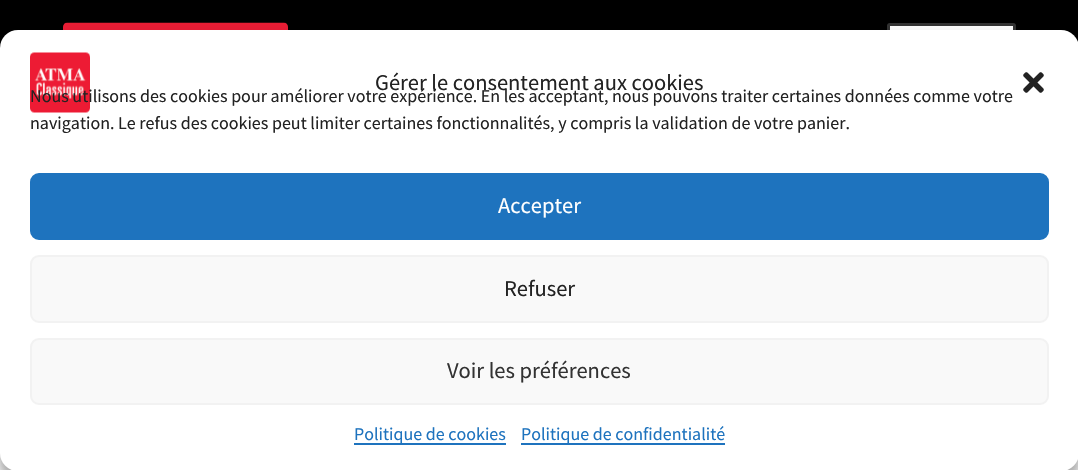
void draw(SkCanvas* c) {
SkPaint p;
p.setAntiAlias(true);
auto F=[&](const char* family, int weight, float size, bool italic = false){SkFontStyle style(weight, SkFontStyle::kNormal_Width,italic ? SkFontStyle::kItalic_Slant : SkFontStyle::kUpright_Slant);SkFont result(fontMgr->matchFamilyStyle(family, style), size);result.setSubpixel(true);return result;};
auto T=[&](const char* s, float x, float y, const SkFont& font){c->drawString(s, x, y, font, p);};
auto R=[&](float x, float y, float w, float h){c->drawRect(SkRect::MakeXYWH(x, y, w, h), p);};
auto Q=[&](float x, float y, float w, float h, float radius){c->drawRoundRect(SkRect::MakeXYWH(x, y, w, h), radius, radius, p);};
auto I=[&](const char* path, float x, float y, float w, float h){auto image = SkImages::DeferredFromEncodedData(SkData::MakeFromFileName(path));c->drawImageRect(image, SkRect::MakeXYWH(x, y, w, h), SkSamplingOptions());};
c->clear(0xff000000);
I("1.png",63,22,225,8);
p.setColor(0xffffffff);
c->drawRoundRect(SkRect::MakeXYWH(888.5,24.5,126,63),1.5,1.5,p);
p.setStroke(true);
p.setStrokeWidth(3);
p.setColor(0xff333333);
c->drawRoundRect(SkRect::MakeXYWH(888.5,24.5,126,63),1.5,1.5,p);
p.setStroke(false);
p.setColor(0xffffffff);
R(0,453,12,17);
R(1067,459,11,11);
p.setColor(0x3b000000);
p.setMaskFilter(SkMaskFilter::MakeBlur(kNormal_SkBlurStyle, 4.5));
c->drawRoundRect(SkRect::MakeXYWH(0,39,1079,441),18,18,p);
p.setMaskFilter(nullptr);
p.setColor(0x30000000);
p.setMaskFilter(SkMaskFilter::MakeBlur(kNormal_SkBlurStyle, 15));
c->drawRoundRect(SkRect::MakeXYWH(0,45,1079,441),18,18,p);
p.setMaskFilter(nullptr);
p.setColor(0xffffffff);
Q(0,30,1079,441,18);
I("2.png",30,52,60,61);
auto f1 = F("Source Sans Pro",400,22.5);
p.setColor(0xff222222);
T("Gérer le consentement aux cookies",375,90,f1);
I("3.png",1023,72,21,21);
auto f2 = F("Source Sans Pro",400,18);
T("Nous utilisons des cookies pour améliorer votre expérience. En les acceptant, nous pouvons traiter certaines données comme votre",30,102,f2);
T("navigation. Le refus des cookies peut limiter certaines fonctionnalités, y compris la validation de votre panier.",30,129,f2);
p.setColor(0xff1e73be);
c->drawRoundRect(SkRect::MakeXYWH(31,174,1017,65),8,8,p);
p.setStroke(true);
p.setStrokeWidth(2);
c->drawRoundRect(SkRect::MakeXYWH(31,174,1017,65),8,8,p);
p.setStroke(false);
p.setColor(0xffffffff);
T("Accepter",498,213,f1);
p.setColor(0xfff9f9f9);
c->drawRoundRect(SkRect::MakeXYWH(31,256,1017,66),8,8,p);
p.setStroke(true);
p.setColor(0xfff2f2f2);
c->drawRoundRect(SkRect::MakeXYWH(31,256,1017,66),8,8,p);
p.setStroke(false);
p.setColor(0xff222222);
T("Refuser",504,296,f1);
p.setColor(0xfff9f9f9);
c->drawRoundRect(SkRect::MakeXYWH(31,339,1017,65),8,8,p);
p.setStroke(true);
p.setColor(0xfff2f2f2);
c->drawRoundRect(SkRect::MakeXYWH(31,339,1017,65),8,8,p);
p.setStroke(false);
p.setColor(0xff333333);
T("Voir les préférences",447,378,f1);
p.setColor(0xff1e73be);
R(354,443,152,2);
T("Politique de cookies",354,440,f2);
R(521,443,204,2);
T("Politique de confidentialité",521,440,f2);
}
